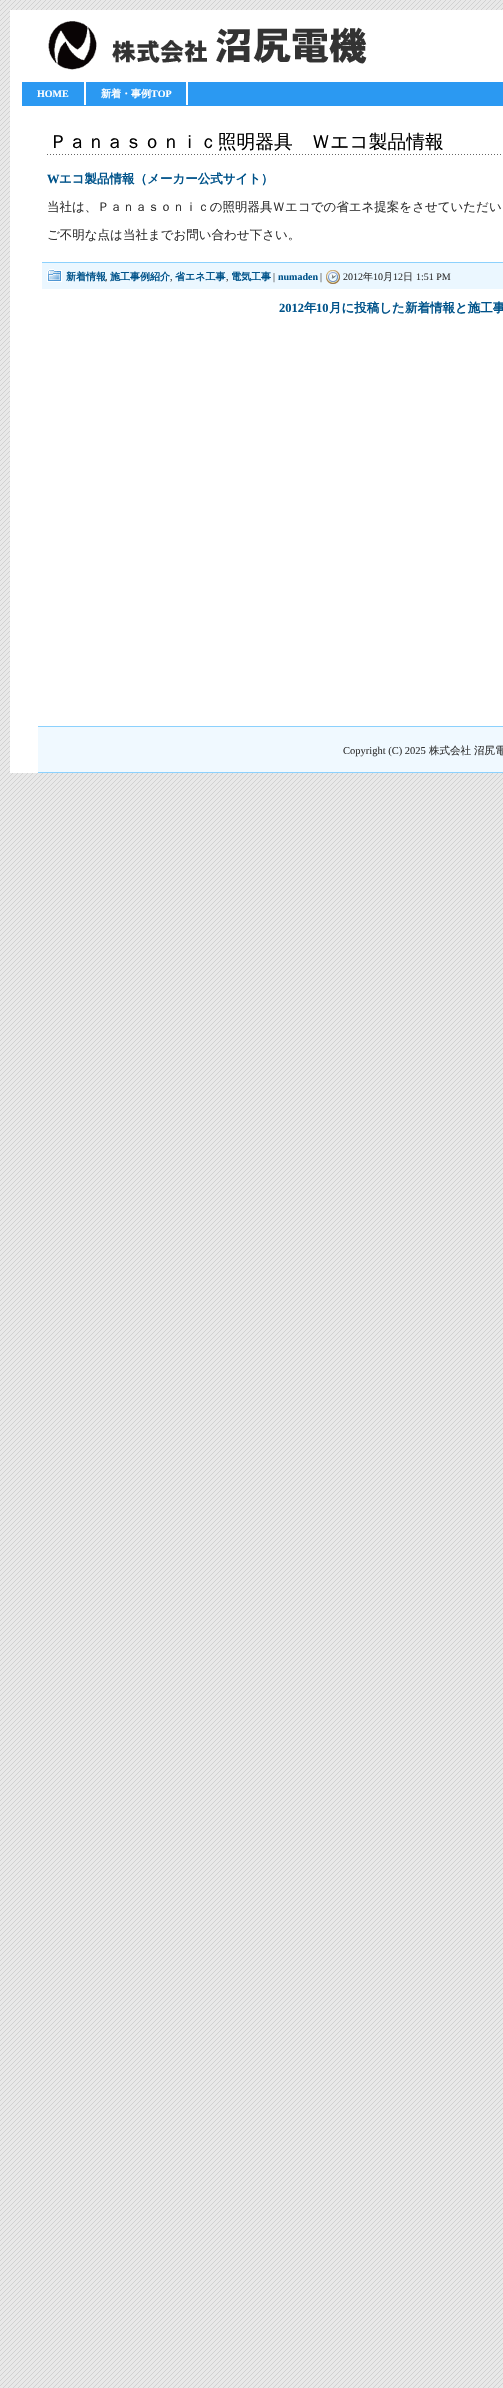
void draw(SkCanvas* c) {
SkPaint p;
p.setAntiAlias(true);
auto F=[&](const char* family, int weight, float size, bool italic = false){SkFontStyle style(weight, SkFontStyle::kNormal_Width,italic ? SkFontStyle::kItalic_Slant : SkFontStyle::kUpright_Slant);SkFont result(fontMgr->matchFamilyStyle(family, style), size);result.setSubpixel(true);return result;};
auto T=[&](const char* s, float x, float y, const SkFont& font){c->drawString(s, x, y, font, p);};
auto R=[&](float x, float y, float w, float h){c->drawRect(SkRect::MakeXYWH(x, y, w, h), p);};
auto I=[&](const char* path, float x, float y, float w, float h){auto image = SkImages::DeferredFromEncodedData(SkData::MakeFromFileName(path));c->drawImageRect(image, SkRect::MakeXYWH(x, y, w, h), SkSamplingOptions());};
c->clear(0xffffffff);
I("1.png",0,0,503,2388);
p.setColor(0xffffffff);
R(10,10,493,763);
I("2.png",48,21,319,49);
p.setColor(0xff2b99f2);
R(22,82,481,24);
auto f1 = F("Liberation Serif",700,10);
p.setColor(0xffffffff);
T("HOME",37,97,f1);
R(84,82,2,23);
auto f2 = F("WenQuanYi Zen Hei",700,10);
T("新着・事例",101,97,f2);
T("TOP",151,97,f1);
R(186,82,2,23);
I("3.png",47,154,454,1);
auto f3 = F("WenQuanYi Zen Hei",500,18.75);
p.setColor(0xff000000);
T("Ｐａｎａｓｏｎｉｃ照明器具　Ｗエコ製品情報",49,148,f3);
auto f4 = F("Liberation Serif",700,12.5);
p.setColor(0xff00538a);
T("W",47,183,f4);
auto f5 = F("WenQuanYi Zen Hei",700,12.5);
T("エコ製品情報（メーカー公式サイト）",59,183,f5);
auto f6 = F("WenQuanYi Zen Hei",500,12.5);
p.setColor(0xff333333);
T("当社は、Ｐａｎａｓｏｎｉｃの照明器具Ｗエコでの省エネ提案をさせていただい",47,211,f6);
T("ご不明な点は当社までお問い合わせ下さい。",47,239,f6);
p.setColor(0xffebf7ff);
R(42,263,461,26);
p.setColor(0xff8cd1fd);
R(42,262,461,1);
I("4.png",47,269,15,13);
p.setColor(0xff00538a);
T("新着情報",66,280,f2);
auto f7 = F("Liberation Serif",400,10);
p.setColor(0xff333333);
T(",",105,280,f7);
p.setColor(0xff00538a);
T("施工事例紹介",110,280,f2);
p.setColor(0xff333333);
T(",",170,280,f7);
p.setColor(0xff00538a);
T("省エネ工事",175,280,f2);
p.setColor(0xff333333);
T(",",226,280,f7);
p.setColor(0xff00538a);
T("電気工事",231,280,f2);
p.setColor(0xff333333);
T("|",273,280,f7);
p.setColor(0xff00538a);
T("numaden",278,280,f1);
p.setColor(0xff333333);
T("|",320,280,f7);
I("5.png",326,270,14,14);
T("2012",343,280,f7);
auto f8 = F("WenQuanYi Zen Hei",500,10);
T("年",363,280,f8);
T("10",373,280,f7);
T("月",383,280,f8);
T("12",393,280,f7);
T("日",403,280,f8);
T("1:51 PM",416,280,f7);
p.setColor(0xff00538a);
T("2012",279,312,f4);
T("年",304,312,f5);
T("10",316,312,f4);
T("月に投稿した新着情報と施工事",329,312,f5);
p.setColor(0xfff0f9ff);
R(38,727,465,45);
p.setColor(0xff8cd1fd);
R(38,726,465,1);
R(38,772,465,1);
auto f9 = F("Liberation Serif",400,10.5);
p.setColor(0xff333333);
T("Copyright (C) 2025",343,754,f9);
auto f10 = F("WenQuanYi Zen Hei",500,10.5);
T("株式会社",429,754,f10);
T("沼尻電",474,754,f10);
}
